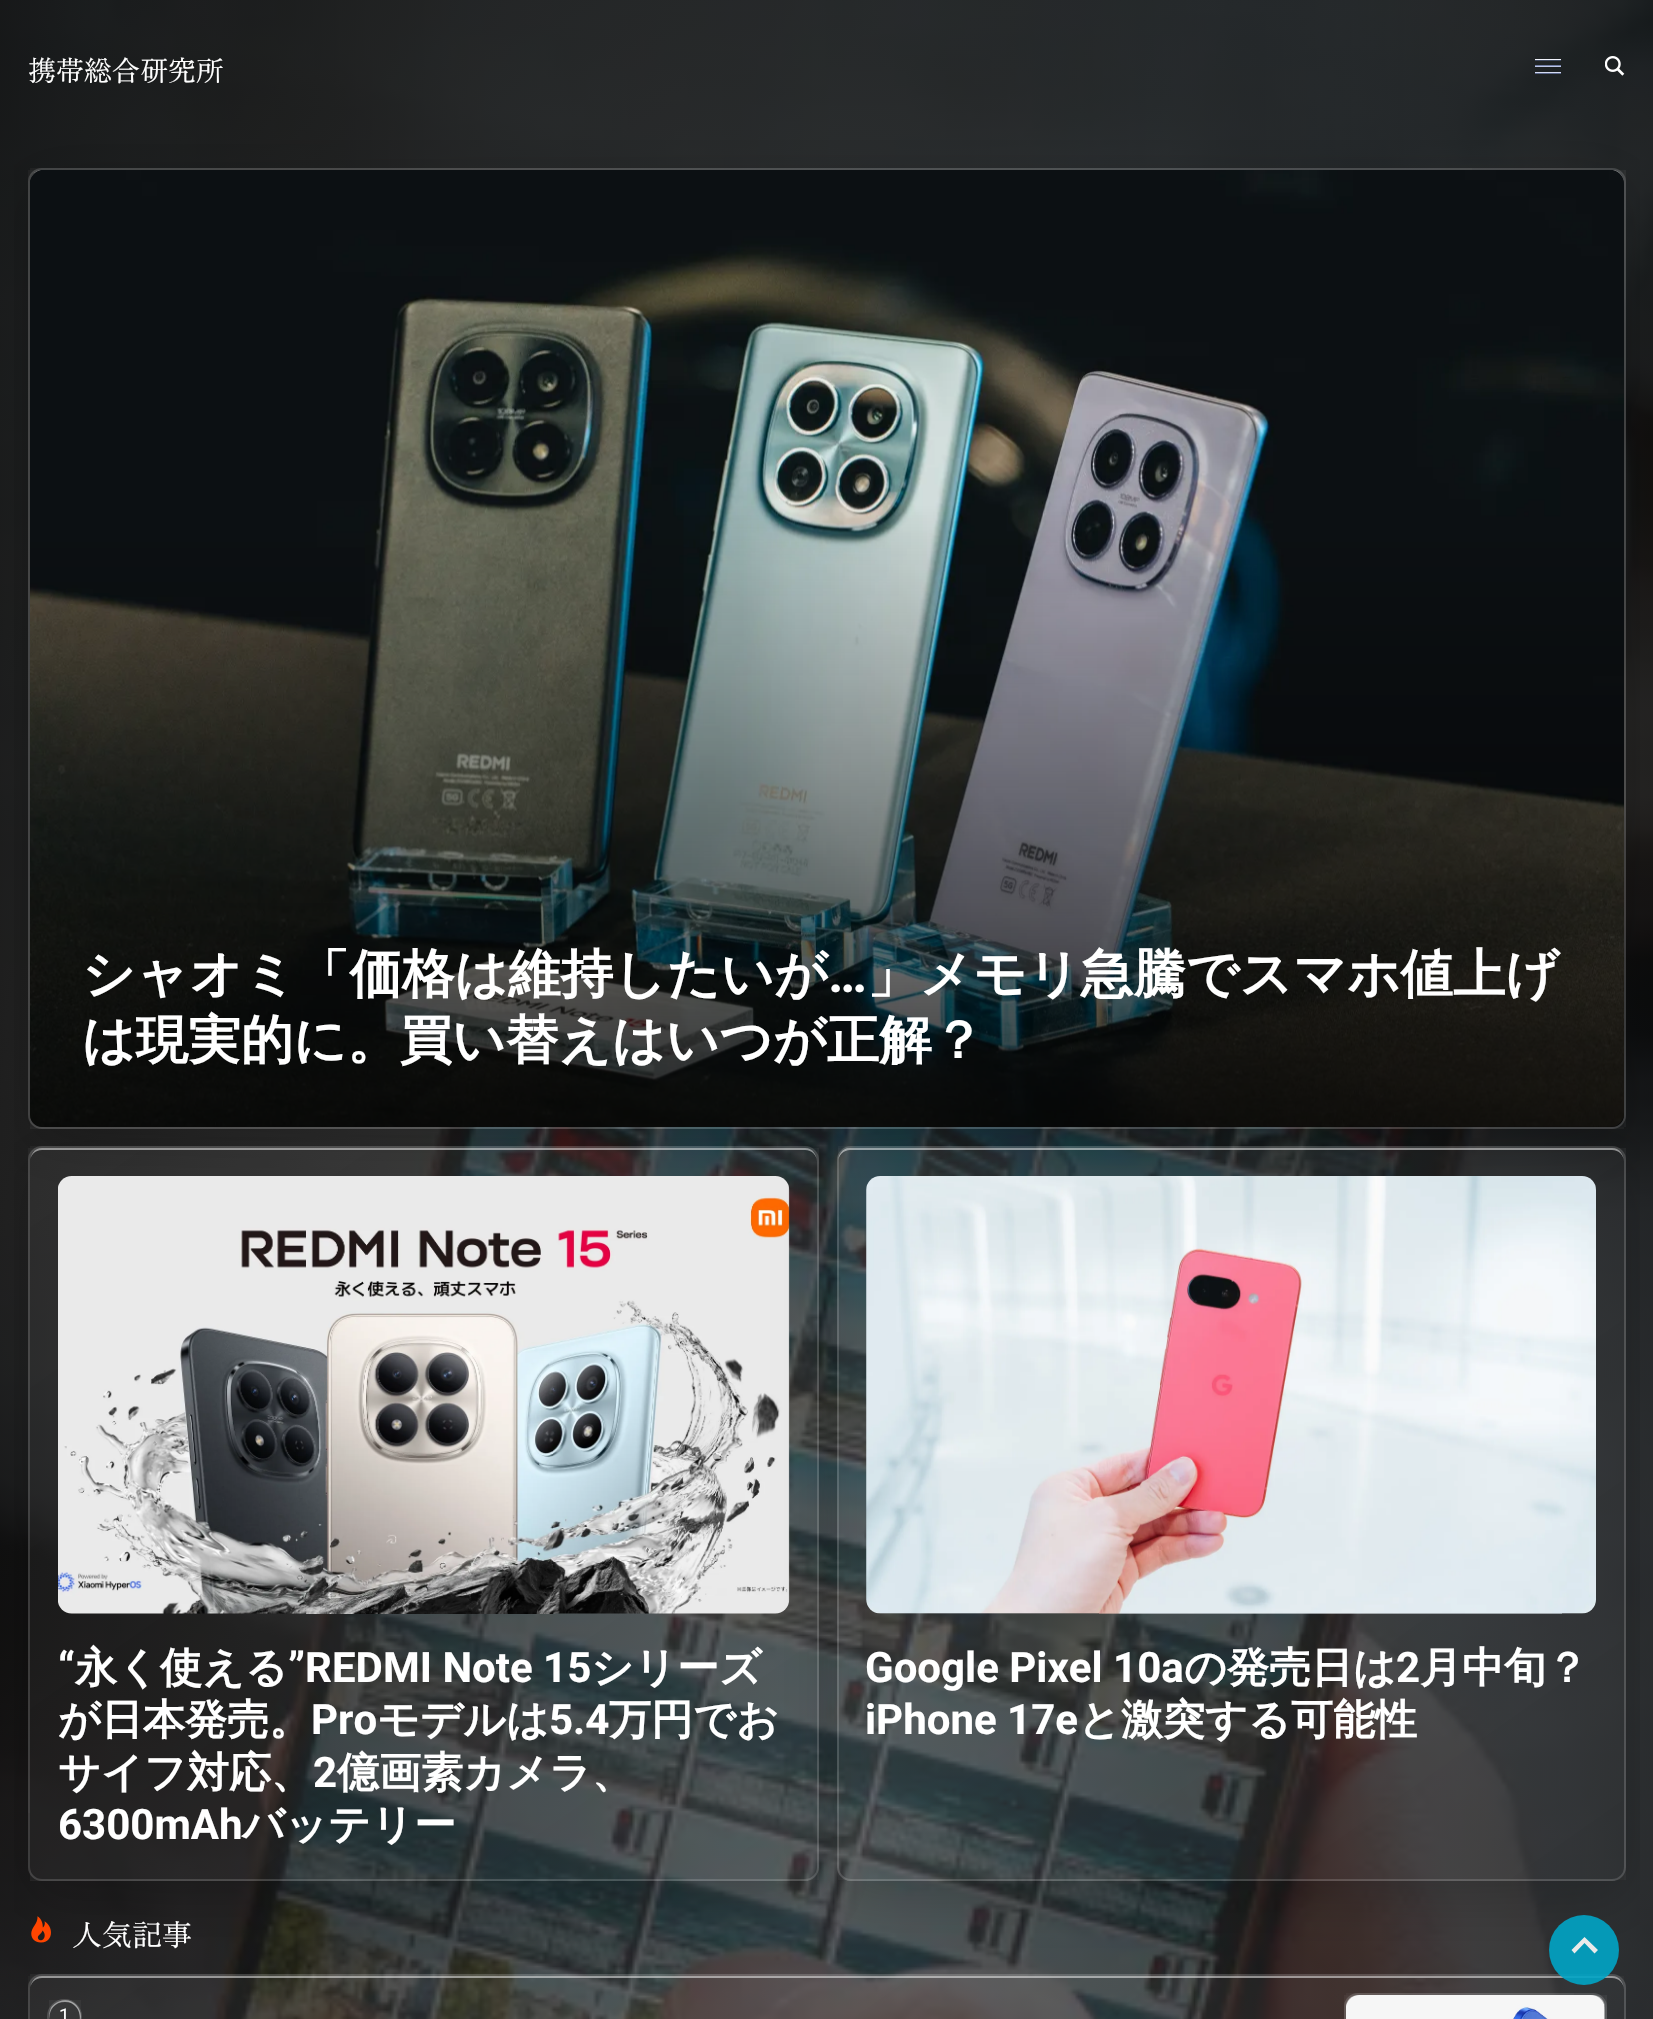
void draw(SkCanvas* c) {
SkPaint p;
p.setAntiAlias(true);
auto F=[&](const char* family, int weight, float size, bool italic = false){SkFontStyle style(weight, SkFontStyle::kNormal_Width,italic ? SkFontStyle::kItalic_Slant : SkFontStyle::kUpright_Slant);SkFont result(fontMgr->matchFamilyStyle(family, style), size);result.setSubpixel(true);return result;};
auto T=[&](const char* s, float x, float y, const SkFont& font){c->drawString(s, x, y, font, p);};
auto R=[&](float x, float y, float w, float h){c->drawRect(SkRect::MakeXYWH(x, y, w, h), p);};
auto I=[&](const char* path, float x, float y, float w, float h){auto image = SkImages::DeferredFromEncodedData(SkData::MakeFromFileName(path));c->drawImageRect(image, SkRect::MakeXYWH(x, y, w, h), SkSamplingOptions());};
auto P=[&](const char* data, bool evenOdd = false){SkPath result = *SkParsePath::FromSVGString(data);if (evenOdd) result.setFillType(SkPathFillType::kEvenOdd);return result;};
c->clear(0xffffffff);
I("3.png",0,0,1653,2019);
auto f1 = F("Zen Old Mincho",400,28);
p.setColor(0xffffffff);
T("携帯総合研究所",28,81,f1);
I("1.png",1535,59,26,15);
I("2.png",1605,56,20,20);
c->save();
c->clipRect(SkRect::MakeXYWH(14,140,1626,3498));
c->clipPath(P("M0 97h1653v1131h-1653zm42 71h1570c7.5 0 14 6.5 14 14v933c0 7.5-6.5 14-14 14h-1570c-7.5 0-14-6.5-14-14v-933c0-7.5 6.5-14 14-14z",true),true);
p.setColor(0x33000000);
p.setMaskFilter(SkMaskFilter::MakeBlur(kNormal_SkBlurStyle, 28));
c->drawRoundRect(SkRect::MakeXYWH(28,182,1598,961),14,14,p);
p.setMaskFilter(nullptr);
c->restore();
{
const SkColor colors[] = {0x0dffffff,0x05ffffff};
const float stops[] = {0,1};
const SkPoint ends[] = {{340,-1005}, {1314,387}};
p.setShader(SkGradientShader::MakeLinear(ends, colors, stops, 2, SkTileMode::kClamp));
p.setAlpha(255);
}
R(30,168,1442,2);
{
const SkColor colors[] = {0x0dffffff,0x05ffffff};
const float stops[] = {0,1};
const SkPoint ends[] = {{-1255,-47}, {-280,1344}};
p.setShader(SkGradientShader::MakeLinear(ends, colors, stops, 2, SkTileMode::kClamp));
p.setAlpha(255);
}
R(28,170,2,850);
{
const SkColor colors[] = {0x0dffffff,0x05ffffff};
const float stops[] = {0,1};
const SkPoint ends[] = {{340,-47}, {1314,1344}};
p.setShader(SkGradientShader::MakeLinear(ends, colors, stops, 2, SkTileMode::kClamp));
p.setAlpha(255);
}
R(30,170,1594,957);
{
const SkColor colors[] = {0x0dffffff,0x05ffffff};
const float stops[] = {0,1};
const SkPoint ends[] = {{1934,-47}, {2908,1344}};
p.setShader(SkGradientShader::MakeLinear(ends, colors, stops, 2, SkTileMode::kClamp));
p.setAlpha(255);
}
R(1624,170,2,957);
{
const SkColor colors[] = {0x0dffffff,0x05ffffff};
const float stops[] = {0,1};
const SkPoint ends[] = {{340,910}, {1314,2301}};
p.setShader(SkGradientShader::MakeLinear(ends, colors, stops, 2, SkTileMode::kClamp));
p.setAlpha(255);
}
R(30,1127,1594,2);
p.setShader(nullptr);
p.setColor(0x80ffffff);
c->drawPath(P("M42 172h1570c7 0 12 5 12 12c0-7-4-14-12-14h-1570c-8 0-12 7-12 14c0-7 5-12 12-12z"),p);
p.setStroke(true);
p.setStrokeWidth(2);
p.setColor(0x26ffffff);
c->drawRoundRect(SkRect::MakeXYWH(29,169,1596,959),13,13,p);
I("4.png",30,170,1594,957);
p.setStroke(false);
{
const SkColor colors[] = {0xcc000000,0x00000000};
const float stops[] = {0,1};
const SkPoint ends[] = {{827,1127}, {827,504}};
p.setShader(SkGradientShader::MakeLinear(ends, colors, stops, 2, SkTileMode::kClamp));
p.setAlpha(255);
}
c->drawPath(P("M30 504h1594v611c0 6.5-5.5 12-12 12h-1570c-6.5 0-12-5.5-12-12z"),p);
auto f2 = F("WenQuanYi Zen Hei",700,52.5);
p.setShader(nullptr);
p.setColor(0xffffffff);
T("シャオミ「価格は維持したいが",82,992,f2);
auto f3 = F("Roboto",700,52.5);
T("…",828,992,f3);
T("」メモリ急騰でスマホ値上げ",867,992,f2);
T("は現実的に。買い替えはいつが正解？",82,1058,f2);
c->save();
c->clipRect(SkRect::MakeXYWH(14,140,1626,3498));
c->clipPath(P("M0 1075h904v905h-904zm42 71h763c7.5 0 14 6.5 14 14v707c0 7.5-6.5 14-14 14h-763c-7.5 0-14-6.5-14-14v-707c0-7.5 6.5-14 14-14z",true),true);
p.setColor(0x33000000);
p.setMaskFilter(SkMaskFilter::MakeBlur(kNormal_SkBlurStyle, 28));
c->drawRoundRect(SkRect::MakeXYWH(28,1160,791,735),14,14,p);
p.setMaskFilter(nullptr);
c->restore();
{
const SkColor colors[] = {0x0dffffff,0x05ffffff};
const float stops[] = {0,1};
const SkPoint ends[] = {{122,352}, {725,1213}};
p.setShader(SkGradientShader::MakeLinear(ends, colors, stops, 2, SkTileMode::kClamp));
p.setAlpha(255);
}
R(30,1146,694,2);
{
const SkColor colors[] = {0x0dffffff,0x05ffffff};
const float stops[] = {0,1};
const SkPoint ends[] = {{-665,1083}, {-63,1944}};
p.setShader(SkGradientShader::MakeLinear(ends, colors, stops, 2, SkTileMode::kClamp));
p.setAlpha(255);
}
R(28,1148,2,665);
{
const SkColor colors[] = {0x0dffffff,0x05ffffff};
const float stops[] = {0,1};
const SkPoint ends[] = {{122,1083}, {725,1944}};
p.setShader(SkGradientShader::MakeLinear(ends, colors, stops, 2, SkTileMode::kClamp));
p.setAlpha(255);
}
R(30,1148,787,732);
{
const SkColor colors[] = {0x0dffffff,0x05ffffff};
const float stops[] = {0,1};
const SkPoint ends[] = {{910,1083}, {1512,1944}};
p.setShader(SkGradientShader::MakeLinear(ends, colors, stops, 2, SkTileMode::kClamp));
p.setAlpha(255);
}
R(817,1148,2,732);
{
const SkColor colors[] = {0x0dffffff,0x05ffffff};
const float stops[] = {0,1};
const SkPoint ends[] = {{122,1815}, {725,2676}};
p.setShader(SkGradientShader::MakeLinear(ends, colors, stops, 2, SkTileMode::kClamp));
p.setAlpha(255);
}
R(30,1880,778,1);
p.setShader(nullptr);
p.setColor(0x80ffffff);
c->drawPath(P("M42 1150h763c7 0 12 5 12 12c0-7-4-14-12-14h-763c-8 0-12 7-12 14c0-7 5-12 12-12z"),p);
p.setStroke(true);
p.setColor(0x26ffffff);
c->drawRoundRect(SkRect::MakeXYWH(29,1147,789,733),13,13,p);
I("5.png",58,1176,732,438);
auto f4 = F("Roboto",700,42);
p.setStroke(false);
p.setColor(0xffffffff);
T("“",58,1682,f4);
auto f5 = F("WenQuanYi Zen Hei",700,42);
T("永く使える",75,1682,f5);
T("”REDMI Note 15",288,1682,f4);
T("シリーズ",591,1682,f5);
T("が日本発売。",58,1734,f5);
T("Pro",311,1734,f4);
T("モデルは",377,1734,f5);
T("5.4",549,1734,f4);
T("万円でお",609,1734,f5);
T("サイフ対応、",58,1787,f5);
T("2",313,1787,f4);
T("億画素カメラ、",337,1787,f5);
T("6300mAh",58,1839,f4);
T("バッテリー",242,1839,f5);
c->save();
c->clipRect(SkRect::MakeXYWH(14,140,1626,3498));
c->clipPath(P("M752 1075h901v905h-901zm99 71h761c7.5 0 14 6.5 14 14v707c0 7.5-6.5 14-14 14h-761c-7.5 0-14-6.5-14-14v-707c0-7.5 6.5-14 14-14z",true),true);
p.setColor(0x33000000);
p.setMaskFilter(SkMaskFilter::MakeBlur(kNormal_SkBlurStyle, 28));
c->drawRoundRect(SkRect::MakeXYWH(837,1160,789,735),14,14,p);
p.setMaskFilter(nullptr);
c->restore();
{
const SkColor colors[] = {0x0dffffff,0x05ffffff};
const float stops[] = {0,1};
const SkPoint ends[] = {{930,352}, {1532,1212}};
p.setShader(SkGradientShader::MakeLinear(ends, colors, stops, 2, SkTileMode::kClamp));
p.setAlpha(255);
}
R(838,1146,692,2);
{
const SkColor colors[] = {0x0dffffff,0x05ffffff};
const float stops[] = {0,1};
const SkPoint ends[] = {{144,1084}, {746,1944}};
p.setShader(SkGradientShader::MakeLinear(ends, colors, stops, 2, SkTileMode::kClamp));
p.setAlpha(255);
}
R(837,1157,1,656);
{
const SkColor colors[] = {0x0dffffff,0x05ffffff};
const float stops[] = {0,1};
const SkPoint ends[] = {{930,1084}, {1532,1944}};
p.setShader(SkGradientShader::MakeLinear(ends, colors, stops, 2, SkTileMode::kClamp));
p.setAlpha(255);
}
R(838,1148,786,732);
{
const SkColor colors[] = {0x0dffffff,0x05ffffff};
const float stops[] = {0,1};
const SkPoint ends[] = {{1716,1084}, {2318,1944}};
p.setShader(SkGradientShader::MakeLinear(ends, colors, stops, 2, SkTileMode::kClamp));
p.setAlpha(255);
}
R(1624,1148,2,732);
{
const SkColor colors[] = {0x0dffffff,0x05ffffff};
const float stops[] = {0,1};
const SkPoint ends[] = {{930,1815}, {1532,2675}};
p.setShader(SkGradientShader::MakeLinear(ends, colors, stops, 2, SkTileMode::kClamp));
p.setAlpha(255);
}
R(847,1880,768,1);
p.setShader(nullptr);
p.setColor(0x80ffffff);
c->drawPath(P("M850 1150h762c7 0 12 5 12 12c0-7-4-14-12-14h-762c-8 0-12 7-12 14c0-7 6-12 12-12z"),p);
p.setStroke(true);
p.setColor(0x26ffffff);
c->drawRoundRect(SkRect::MakeXYWH(838,1147,787,733),13,13,p);
I("6.png",866,1176,730,438);
p.setStroke(false);
p.setColor(0xffffffff);
T("Google Pixel 10a",865,1682,f4);
T("の発売日は",1184,1682,f5);
T("2",1396,1682,f4);
T("月中旬？",1420,1682,f5);
T("iPhone 17e",865,1734,f4);
T("と激突する可能性",1078,1734,f5);
I("7.png",31,1916,20,27);
auto f6 = F("Zen Old Mincho",400,30);
T("人気記事",72,1946,f6);
{
const SkColor colors[] = {0x0dffffff,0x05ffffff};
const float stops[] = {0,1};
const SkPoint ends[] = {{495,1353}, {1159,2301}};
p.setShader(SkGradientShader::MakeLinear(ends, colors, stops, 2, SkTileMode::kClamp));
p.setAlpha(255);
}
R(30,1974,1490,2);
{
const SkColor colors[] = {0x0dffffff,0x05ffffff};
const float stops[] = {0,1};
const SkPoint ends[] = {{-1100,1650}, {-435,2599}};
p.setShader(SkGradientShader::MakeLinear(ends, colors, stops, 2, SkTileMode::kClamp));
p.setAlpha(255);
}
R(28,1976,2,43);
{
const SkColor colors[] = {0x0dffffff,0x05ffffff};
const float stops[] = {0,1};
const SkPoint ends[] = {{495,1650}, {1159,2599}};
p.setShader(SkGradientShader::MakeLinear(ends, colors, stops, 2, SkTileMode::kClamp));
p.setAlpha(255);
}
R(30,1976,1594,43);
c->save();
c->clipPath(P("M42 1974h1570c7.5 0 14 6.5 14 14v273c0 7.5-6.5 14-14 14h-1570c-7.5 0-14-6.5-14-14v-273c0-7.5 6.5-14 14-14z"),true);
{
const SkColor colors[] = {0xff353739,0xff2f3133};
const float stops[] = {0,1};
const SkPoint ends[] = {{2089,1650}, {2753,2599}};
p.setShader(SkGradientShader::MakeLinear(ends, colors, stops, 2, SkTileMode::kClamp));
p.setAlpha(255);
}
R(1624,1976,2,43);
c->restore();
p.setShader(nullptr);
p.setColor(0x80ffffff);
c->drawPath(P("M42 1978h1570c7 0 12 5 12 12c0-7-4-14-12-14h-1570c-8 0-12 7-12 14c0-7 5-12 12-12z"),p);
p.setStroke(true);
p.setColor(0x26ffffff);
c->drawRoundRect(SkRect::MakeXYWH(29,1975,1596,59),13,13,p);
c->save();
c->clipPath(P("M64.5 1999c9.5 0 17.5 8 17.5 17.5c0 9.5-8 17.5-17.5 17.5c-9.5 0-17.5-8-17.5-17.5c0-9.5 8-17.5 17.5-17.5z"),true);
p.setStroke(false);
{
const SkColor colors[] = {0xff373738,0xff313032};
const float stops[] = {0,1};
const SkPoint ends[] = {{52,1967}, {77,2002}};
p.setShader(SkGradientShader::MakeLinear(ends, colors, stops, 2, SkTileMode::kClamp));
p.setAlpha(255);
}
R(59,1999,11,1);
{
const SkColor colors[] = {0xff363637,0xff303031};
const float stops[] = {0,1};
const SkPoint ends[] = {{21,1998}, {46,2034}};
p.setShader(SkGradientShader::MakeLinear(ends, colors, stops, 2, SkTileMode::kClamp));
p.setAlpha(255);
}
R(47,2000,2,19);
c->restore();
{
const SkColor colors[] = {0x0dffffff,0x05ffffff};
const float stops[] = {0,1};
const SkPoint ends[] = {{52,1998}, {77,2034}};
p.setShader(SkGradientShader::MakeLinear(ends, colors, stops, 2, SkTileMode::kClamp));
p.setAlpha(255);
}
R(49,2000,32,19);
c->save();
c->clipPath(P("M64.5 1999c9.5 0 17.5 8 17.5 17.5c0 9.5-8 17.5-17.5 17.5c-9.5 0-17.5-8-17.5-17.5c0-9.5 8-17.5 17.5-17.5z"),true);
{
const SkColor colors[] = {0xff383839,0xff323232};
const float stops[] = {0,1};
const SkPoint ends[] = {{84,1998}, {109,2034}};
p.setShader(SkGradientShader::MakeLinear(ends, colors, stops, 2, SkTileMode::kClamp));
p.setAlpha(255);
}
R(81,2011,1,8);
c->restore();
p.setShader(nullptr);
p.setColor(0x80ffffff);
c->drawPath(P("M65 2002c12 0 17 12 14 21.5c7-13-6.5-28-20-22c-3 1-5.5 3-7.5 5.5c-2 3.5-3 8-2 12c-.5-8.5 4.5-17 15.5-17z"),p);
p.setStroke(true);
p.setColor(0x26ffffff);
c->drawCircle(64.5,2016.5,16.5,p);
auto f7 = F("Roboto",400,19);
p.setStroke(false);
p.setColor(0xffffffff);
T("1",59,2022,f7);
{
const SkColor colors[] = {0x0dffffff,0x05ffffff};
const float stops[] = {0,1};
const SkPoint ends[] = {{1372,1718}, {1579,2013}};
p.setShader(SkGradientShader::MakeLinear(ends, colors, stops, 2, SkTileMode::kClamp));
p.setAlpha(255);
}
R(1346,1993,228,2);
{
const SkColor colors[] = {0x0dffffff,0x05ffffff};
const float stops[] = {0,1};
const SkPoint ends[] = {{1113,1977}, {1320,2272}};
p.setShader(SkGradientShader::MakeLinear(ends, colors, stops, 2, SkTileMode::kClamp));
p.setAlpha(255);
}
R(1344,1995,2,24);
{
const SkColor colors[] = {0x0dffffff,0x05ffffff};
const float stops[] = {0,1};
const SkPoint ends[] = {{1372,1977}, {1579,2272}};
p.setShader(SkGradientShader::MakeLinear(ends, colors, stops, 2, SkTileMode::kClamp));
p.setAlpha(255);
}
R(1346,1995,259,24);
{
const SkColor colors[] = {0x0dffffff,0x05ffffff};
const float stops[] = {0,1};
const SkPoint ends[] = {{1631,1977}, {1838,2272}};
p.setShader(SkGradientShader::MakeLinear(ends, colors, stops, 2, SkTileMode::kClamp));
p.setAlpha(255);
}
R(1605,1995,2,24);
p.setShader(nullptr);
p.setColor(0x80ffffff);
c->drawPath(P("M1358 1997h234c7 0 13 5 13 12v-2c0-7-5-12-12-12h-235c-7 0-12 5-12 12v2c0-7 5-12 12-12z"),p);
p.setStroke(true);
p.setColor(0x26ffffff);
c->drawRoundRect(SkRect::MakeXYWH(1345,1994,261,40),13,13,p);
I("8.png",1346,1995,259,24);
p.setStroke(false);
p.setColor(0xe600a4c5);
c->drawCircle(1584,1950,35,p);
p.setColor(0xffeaeaea);
c->drawPath(P("M1571.5 1950l3 3.5l10-10.5l10 10.5l3.5-3.5l-13.5-13z"),p);
}
